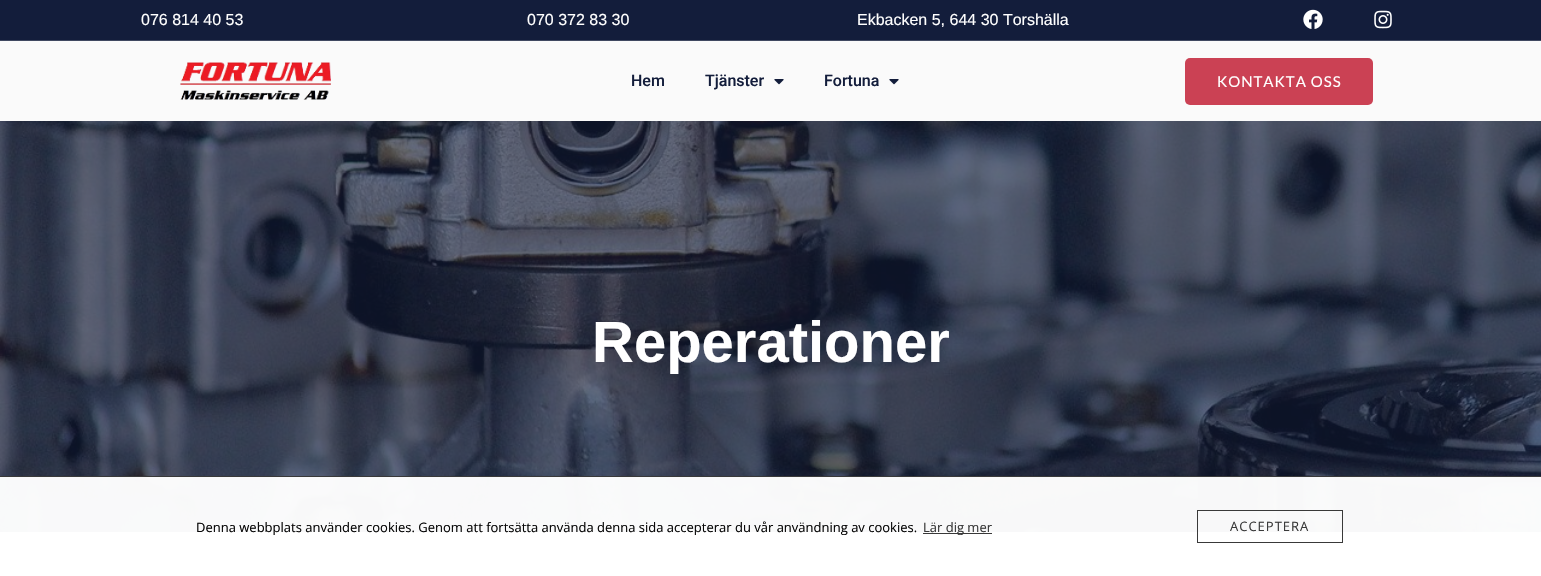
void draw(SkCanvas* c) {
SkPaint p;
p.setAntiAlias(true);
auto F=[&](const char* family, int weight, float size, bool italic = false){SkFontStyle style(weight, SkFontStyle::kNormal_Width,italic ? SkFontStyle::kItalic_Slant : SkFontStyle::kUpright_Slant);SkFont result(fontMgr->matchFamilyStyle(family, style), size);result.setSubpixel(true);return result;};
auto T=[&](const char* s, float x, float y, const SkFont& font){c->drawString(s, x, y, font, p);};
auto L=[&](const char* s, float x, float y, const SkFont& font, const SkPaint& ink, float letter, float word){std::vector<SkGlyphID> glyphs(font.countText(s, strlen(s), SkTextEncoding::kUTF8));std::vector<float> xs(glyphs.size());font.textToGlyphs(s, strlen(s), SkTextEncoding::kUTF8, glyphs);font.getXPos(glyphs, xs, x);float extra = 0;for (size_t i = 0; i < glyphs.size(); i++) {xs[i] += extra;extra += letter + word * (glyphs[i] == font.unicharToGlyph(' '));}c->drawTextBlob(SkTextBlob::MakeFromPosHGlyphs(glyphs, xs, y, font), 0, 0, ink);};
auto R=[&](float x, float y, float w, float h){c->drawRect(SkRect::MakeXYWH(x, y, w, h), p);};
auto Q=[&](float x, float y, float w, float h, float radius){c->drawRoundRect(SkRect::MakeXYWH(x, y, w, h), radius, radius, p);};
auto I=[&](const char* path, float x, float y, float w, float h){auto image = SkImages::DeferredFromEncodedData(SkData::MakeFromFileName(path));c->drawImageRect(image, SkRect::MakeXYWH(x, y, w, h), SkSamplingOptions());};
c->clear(0xffffffff);
p.setColor(0xff131d3b);
R(0,0,1541,40);
p.setColor(0xff404860);
R(0,40,1541,1);
auto f1 = F("Liberation Sans",400,16);
p.setColor(0xffffffff);
T("076 814 40 53",141,25,f1);
T("070 372 83 30",527,25,f1);
T("Ekbacken 5, 644 30 Torshälla",857,25,f1);
I("1.png",1303,9,20,20);
I("2.png",1374,10,18,19);
p.setColor(0xfffafafa);
R(0,41,1541,80);
I("3.png",180,62,151,38);
auto f2 = F("Roboto",500,16);
p.setColor(0xff131d3b);
T("Hem",631,86,f2);
T("Tjänster",705,86,f2);
I("4.png",774,79,10,6);
T("Fortuna",824,86,f2);
I("4.png",889,79,10,6);
p.setColor(0xffcb4154);
Q(1185,58,188,47,5);
auto f3 = F("Lato",400,15);
p.setColor(0xffffffff);
L("KONTAKTA OSS",1217,87,f3,p,1,0);
I("5.png",0,121,1541,411);
auto f4 = F("Liberation Sans",700,58);
T("Reperationer",592,362,f4);
p.setColor(0xfffdf1f1);
R(0,532,1541,44);
p.setColor(0xf7ffffff);
R(0,476,1541,100);
p.setColor(0xf7333333);
R(0,476,1541,1);
auto f5 = F("Open Sans",400,13);
p.setColor(0xff070707);
T("Denna webbplats använder cookies. Genom att fortsätta använda denna sida accepterar du vår användning av cookies.",196,532,f5);
p.setColor(0xff393939);
R(923,533,69,1);
T("Lär dig mer",923,532,f5);
p.setStroke(true);
p.setStrokeWidth(1);
p.setColor(0xf7333333);
c->drawRect(SkRect::MakeXYWH(1197.5,510.5,145,32),p);
p.setStroke(false);
p.setColor(0xff393939);
L("ACCEPTERA",1230,531,f5,p,1,0);
}
